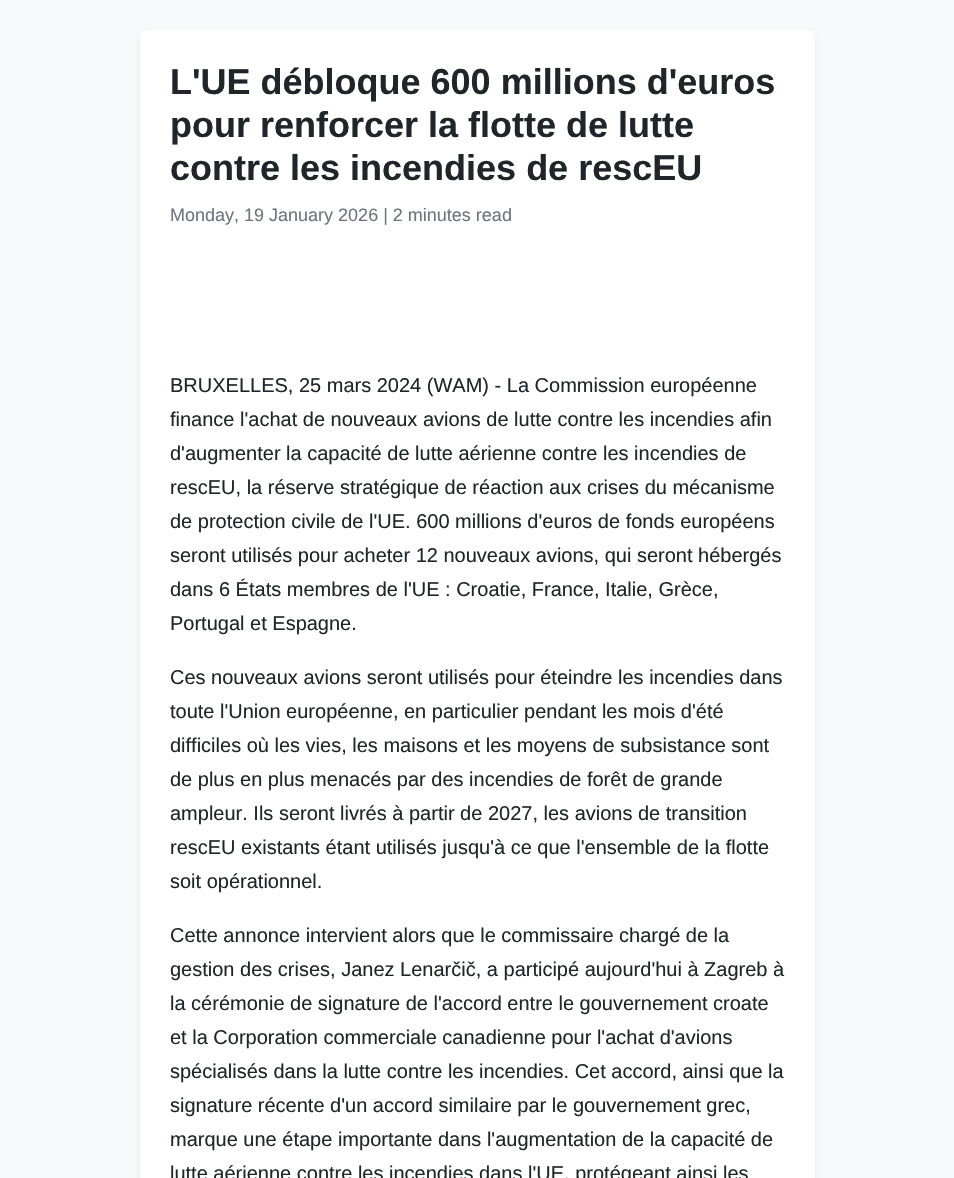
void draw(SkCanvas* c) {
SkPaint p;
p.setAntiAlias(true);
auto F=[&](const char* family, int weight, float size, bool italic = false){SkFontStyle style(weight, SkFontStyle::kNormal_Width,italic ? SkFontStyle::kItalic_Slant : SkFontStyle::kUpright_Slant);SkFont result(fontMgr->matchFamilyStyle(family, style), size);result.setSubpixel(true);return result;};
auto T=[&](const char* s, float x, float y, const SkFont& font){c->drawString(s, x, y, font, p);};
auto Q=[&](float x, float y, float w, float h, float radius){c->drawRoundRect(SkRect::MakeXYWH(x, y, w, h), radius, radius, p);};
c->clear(0xfff8f9fa);
p.setColor(0x12000000);
p.setMaskFilter(SkMaskFilter::MakeBlur(kNormal_SkBlurStyle, 2.5));
c->drawRoundRect(SkRect::MakeXYWH(140,33,675,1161),8,8,p);
p.setMaskFilter(nullptr);
p.setColor(0xffffffff);
Q(140,30,675,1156,8);
auto f1 = F("Liberation Sans",700,36);
p.setColor(0xff212529);
T("L'UE débloque 600 millions d'euros",170,94,f1);
T("pour renforcer la flotte de lutte",170,137,f1);
T("contre les incendies de rescEU",170,180,f1);
auto f2 = F("Liberation Sans",400,18);
p.setColor(0xff6c757d);
T("Monday, 19 January 2026 | 2 minutes read",170,221,f2);
auto f3 = F("Liberation Sans",400,20);
p.setColor(0xff212529);
T("BRUXELLES, 25 mars 2024 (WAM) - La Commission européenne",170,392,f3);
T("finance l'achat de nouveaux avions de lutte contre les incendies afin",170,426,f3);
T("d'augmenter la capacité de lutte aérienne contre les incendies de",170,460,f3);
T("rescEU, la réserve stratégique de réaction aux crises du mécanisme",170,494,f3);
T("de protection civile de l'UE. 600 millions d'euros de fonds européens",170,528,f3);
T("seront utilisés pour acheter 12 nouveaux avions, qui seront hébergés",170,562,f3);
T("dans 6 États membres de l'UE : Croatie, France, Italie, Grèce,",170,596,f3);
T("Portugal et Espagne.",170,630,f3);
T("Ces nouveaux avions seront utilisés pour éteindre les incendies dans",170,684,f3);
T("toute l'Union européenne, en particulier pendant les mois d'été",170,718,f3);
T("difficiles où les vies, les maisons et les moyens de subsistance sont",170,752,f3);
T("de plus en plus menacés par des incendies de forêt de grande",170,786,f3);
T("ampleur. Ils seront livrés à partir de 2027, les avions de transition",170,820,f3);
T("rescEU existants étant utilisés jusqu'à ce que l'ensemble de la flotte",170,854,f3);
T("soit opérationnel.",170,888,f3);
T("Cette annonce intervient alors que le commissaire chargé de la",170,942,f3);
T("gestion des crises, Janez Lenarčič, a participé aujourd'hui à Zagreb à",170,976,f3);
T("la cérémonie de signature de l'accord entre le gouvernement croate",170,1010,f3);
T("et la Corporation commerciale canadienne pour l'achat d'avions",170,1044,f3);
T("spécialisés dans la lutte contre les incendies. Cet accord, ainsi que la",170,1078,f3);
T("signature récente d'un accord similaire par le gouvernement grec,",170,1112,f3);
T("marque une étape importante dans l'augmentation de la capacité de",170,1146,f3);
T("lutte aérienne contre les incendies dans l'UE, protégeant ainsi les",170,1180,f3);
}
